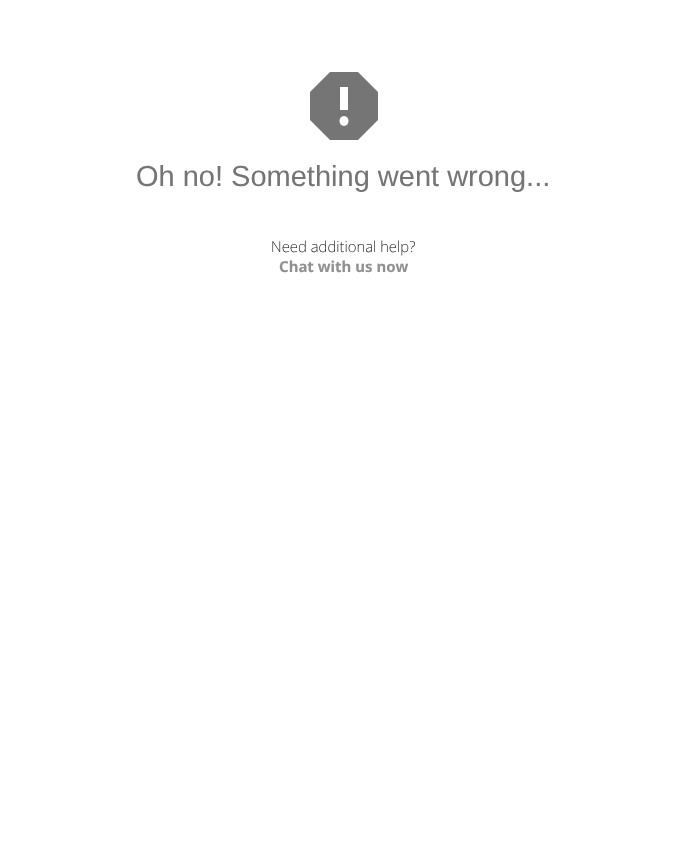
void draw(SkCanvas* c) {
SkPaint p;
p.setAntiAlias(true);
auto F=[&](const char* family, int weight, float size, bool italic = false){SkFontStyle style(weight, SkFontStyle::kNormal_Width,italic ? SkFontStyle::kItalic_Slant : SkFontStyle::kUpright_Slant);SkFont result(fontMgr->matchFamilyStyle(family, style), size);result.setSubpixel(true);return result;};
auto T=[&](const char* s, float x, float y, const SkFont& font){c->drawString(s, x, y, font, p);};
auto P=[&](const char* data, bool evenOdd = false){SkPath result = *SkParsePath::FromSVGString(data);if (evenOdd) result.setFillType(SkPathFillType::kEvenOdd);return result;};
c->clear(0xffffffff);
p.setColor(0xff757575);
c->drawPath(P("M358 72h-28l-20 20v28l20 20h28l20-20v-28zm-14 54c-6 0-6-10 0-10c6 0 6 10 0 10zm4-16h-8v-23h8z"),p);
auto f1 = F("Liberation Sans",400,29);
T("Oh no! Something went wrong...",136,186,f1);
auto f2 = F("Noto Sans",200,15);
p.setColor(0xff212121);
T("Need additional help?",271,252,f2);
auto f3 = F("Noto Sans",700,15);
p.setColor(0xff909090);
T("Chat with us now",279,272,f3);
}
